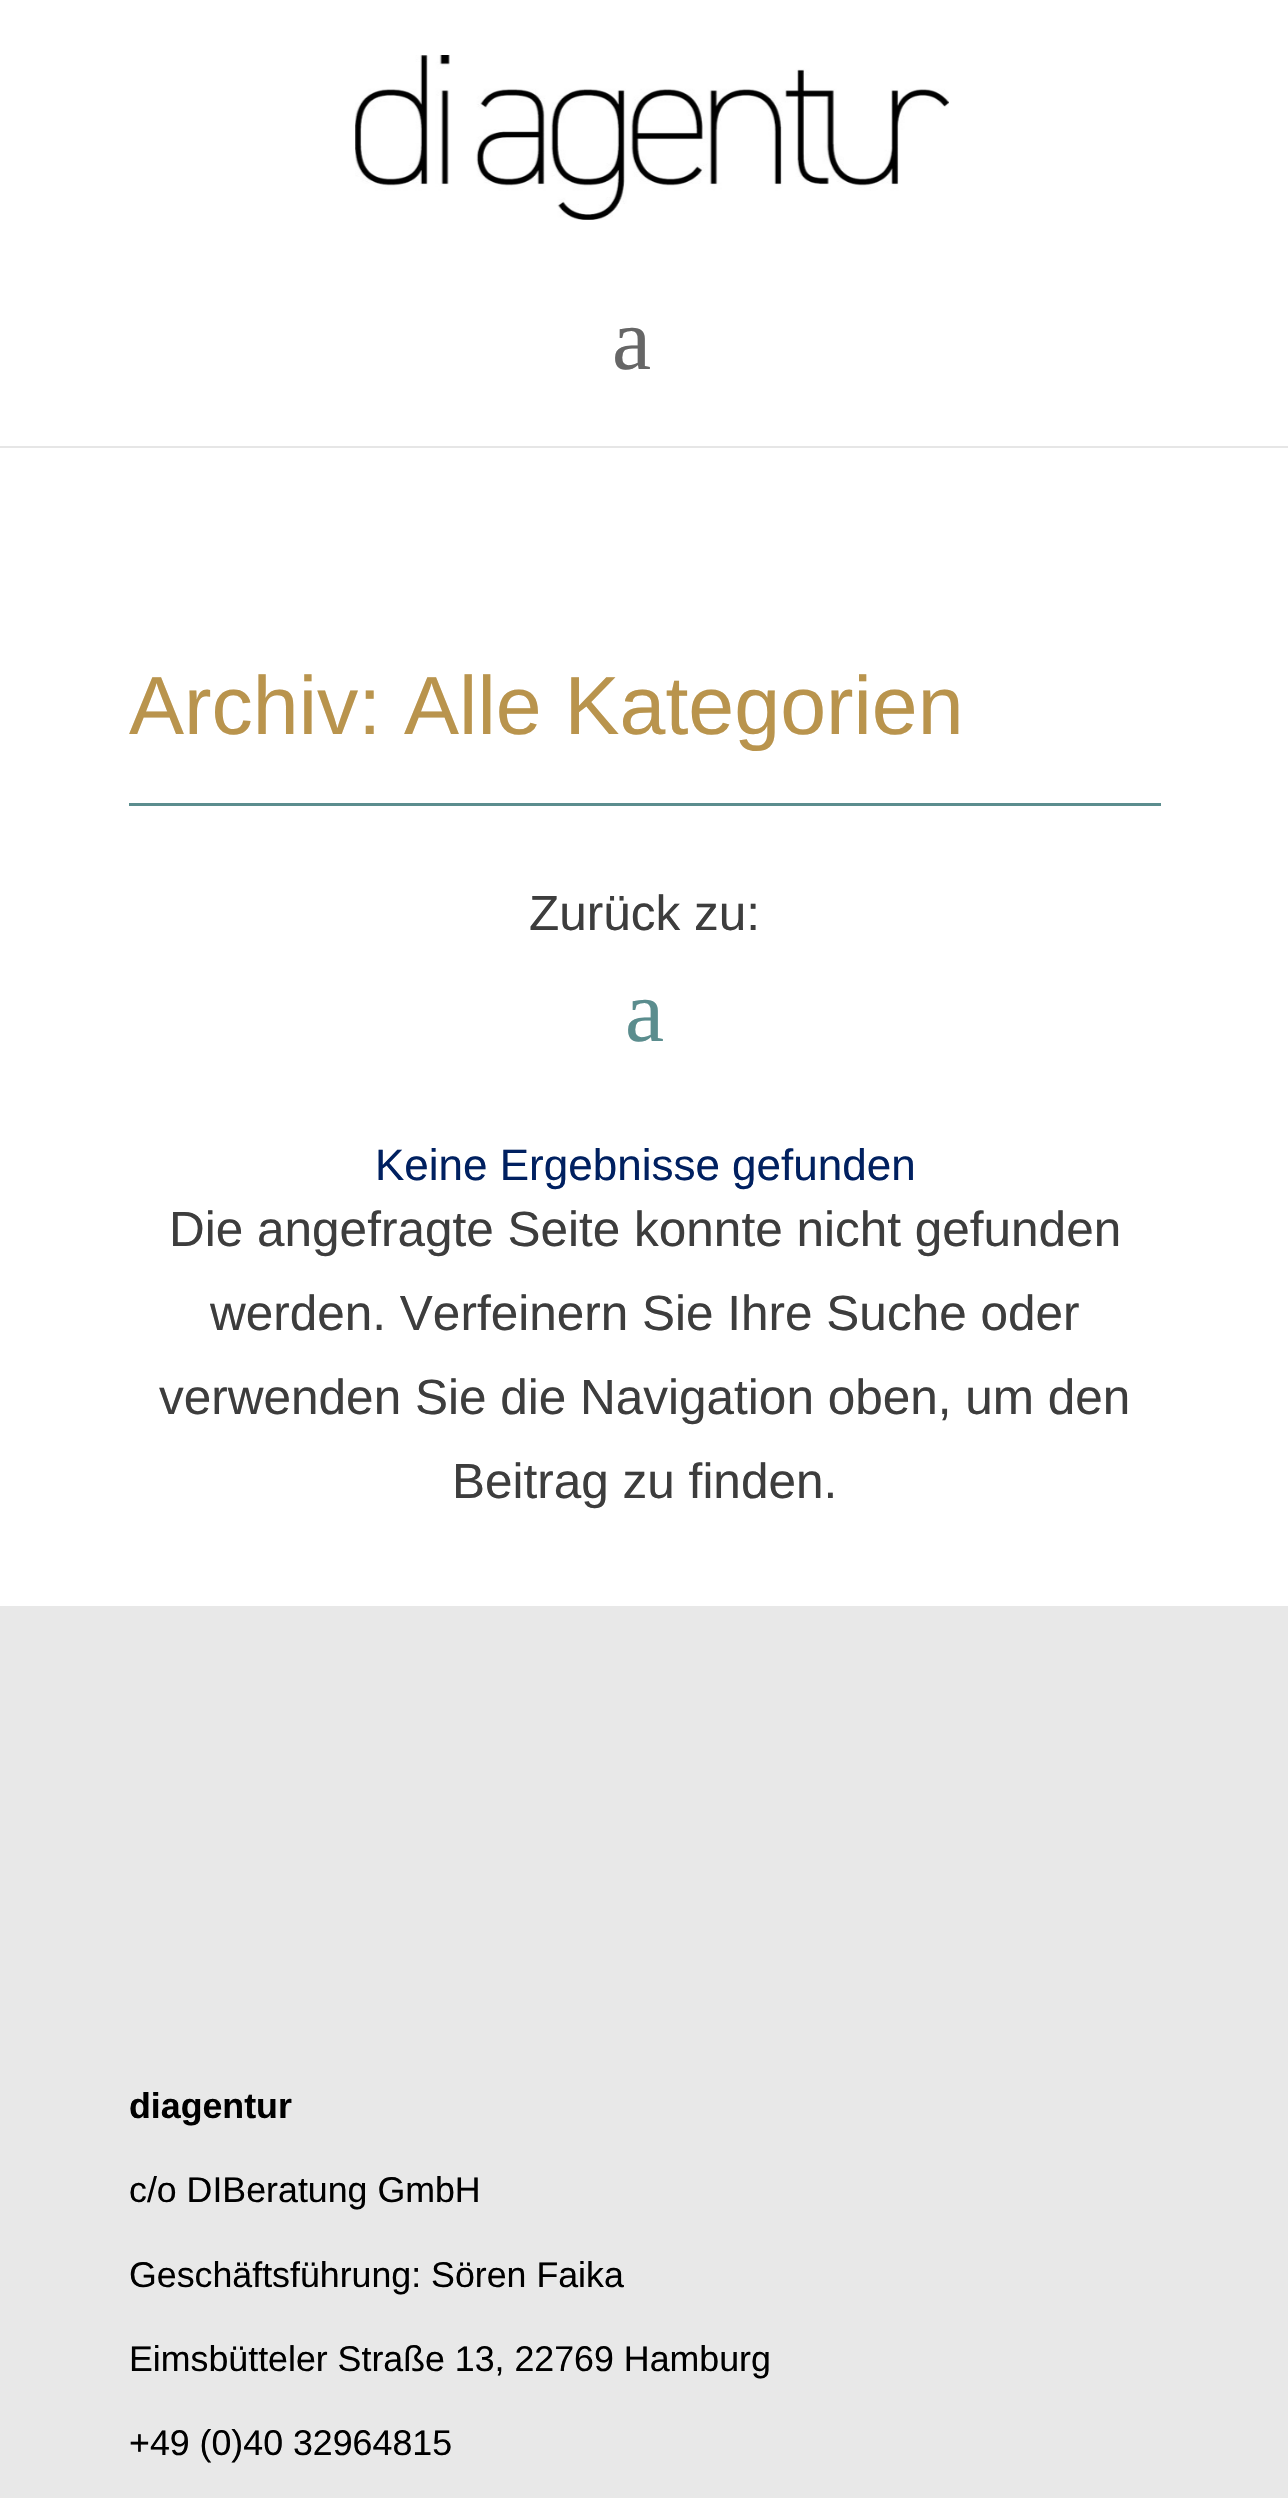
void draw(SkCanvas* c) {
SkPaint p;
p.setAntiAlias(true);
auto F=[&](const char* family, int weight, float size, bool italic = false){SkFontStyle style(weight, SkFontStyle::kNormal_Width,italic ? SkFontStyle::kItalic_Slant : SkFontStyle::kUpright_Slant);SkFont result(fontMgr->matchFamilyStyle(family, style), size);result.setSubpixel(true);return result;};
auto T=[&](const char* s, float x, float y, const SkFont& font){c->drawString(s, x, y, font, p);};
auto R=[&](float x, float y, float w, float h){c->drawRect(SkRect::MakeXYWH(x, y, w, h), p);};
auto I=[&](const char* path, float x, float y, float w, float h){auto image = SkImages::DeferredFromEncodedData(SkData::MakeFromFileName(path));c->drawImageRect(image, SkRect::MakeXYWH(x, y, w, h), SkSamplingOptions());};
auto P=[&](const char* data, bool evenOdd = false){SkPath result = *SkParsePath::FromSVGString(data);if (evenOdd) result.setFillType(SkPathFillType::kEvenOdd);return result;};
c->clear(0xffffffff);
p.setColor(0xffe6e6e6);
c->drawPath(P("M0 446v2h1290v-445v443z"),p);
I("1.png",355,55,594,165);
auto f1 = F("Liberation Serif",400,88);
p.setColor(0xff666666);
T("a",612,369,f1);
auto f2 = F("Liberation Sans",400,82.5);
p.setColor(0xffb9944d);
T("Archiv: Alle Kategorien",129,734,f2);
p.setColor(0xff5b8d8e);
R(129,803,1032,3);
auto f3 = F("Liberation Sans",400,49.5);
p.setColor(0xff3d3d3d);
T("Zurück zu:",529,930,f3);
p.setColor(0xff5b8d8e);
T("a",625,1041,f1);
auto f4 = F("Liberation Sans",400,44);
p.setColor(0xff002060);
T("Keine Ergebnisse gefunden",375,1180,f4);
p.setColor(0xff3d3d3d);
T("Die angefragte Seite konnte nicht gefunden",169,1246,f3);
T("werden. Verfeinern Sie Ihre Suche oder",210,1330,f3);
T("verwenden Sie die Navigation oben, um den",159,1414,f3);
T("Beitrag zu finden.",452,1498,f3);
p.setColor(0xffe8e8e8);
R(0,1606,1288,892);
auto f5 = F("Liberation Sans",700,35.75);
p.setColor(0xff000000);
T("diagentur",129,2118,f5);
auto f6 = F("Liberation Sans",400,35.75);
T("c/o DIBeratung GmbH",129,2202,f6);
T("Geschäftsführung: Sören Faika",129,2287,f6);
T("Eimsbütteler Straße 13, 22769 Hamburg",129,2371,f6);
T("+49 (0)40 32964815",129,2455,f6);
}
